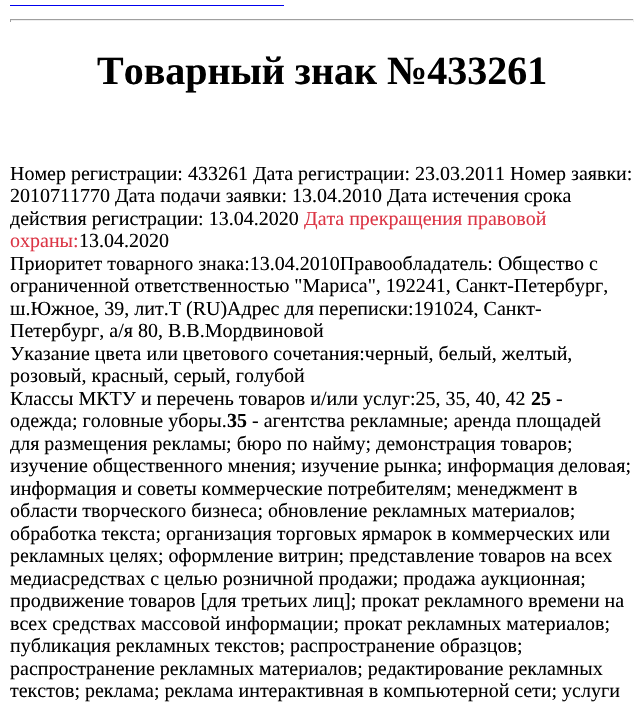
void draw(SkCanvas* c) {
SkPaint p;
p.setAntiAlias(true);
auto F=[&](const char* family, int weight, float size, bool italic = false){SkFontStyle style(weight, SkFontStyle::kNormal_Width,italic ? SkFontStyle::kItalic_Slant : SkFontStyle::kUpright_Slant);SkFont result(fontMgr->matchFamilyStyle(family, style), size);result.setSubpixel(true);return result;};
auto T=[&](const char* s, float x, float y, const SkFont& font){c->drawString(s, x, y, font, p);};
auto R=[&](float x, float y, float w, float h){c->drawRect(SkRect::MakeXYWH(x, y, w, h), p);};
c->clear(0xffffffff);
p.setColor(0xff0000ee);
R(10,5,274,1);
p.setColor(0xff9f9f9f);
R(10,19,624,1);
p.setColor(0xffeeeeee);
R(633,19,1,3);
R(10,20,624,1);
p.setColor(0xff9f9f9f);
R(10,19,1,3);
auto f1 = F("Liberation Serif",700,40);
p.setColor(0xff000000);
T("Товарный знак №433261",97,84,f1);
auto f2 = F("Liberation Serif",400,20);
T("Номер регистрации: 433261 Дата регистрации: 23.03.2011 Номер заявки:",10,180,f2);
T("2010711770 Дата подачи заявки: 13.04.2010 Дата истечения срока",10,202,f2);
T("действия регистрации: 13.04.2020",10,225,f2);
p.setColor(0xffdc3545);
T("Дата прекращения правовой",304,225,f2);
T("охраны:",10,247,f2);
p.setColor(0xff000000);
T("13.04.2020",79,247,f2);
T("Приоритет товарного знака:13.04.2010Правообладатель: Общество с",10,270,f2);
T("ограниченной ответственностью \"Мариса\", 192241, Санкт-Петербург,",10,292,f2);
T("ш.Южное, 39, лит.Т (RU)Адрес для переписки:191024, Санкт-",10,315,f2);
T("Петербург, а/я 80, В.В.Мордвиновой",10,337,f2);
T("Указание цвета или цветового сочетания:черный, белый, желтый,",10,360,f2);
T("розовый, красный, серый, голубой",10,382,f2);
T("Классы МКТУ и перечень товаров и/или услуг:25, 35, 40, 42",10,405,f2);
auto f3 = F("Liberation Serif",700,20);
T("25",531,405,f3);
T("-",556,405,f2);
T("одежда; головные уборы.",10,427,f2);
T("35",227,427,f3);
T("- агентства рекламные; аренда площадей",252,427,f2);
T("для размещения рекламы; бюро по найму; демонстрация товаров;",10,450,f2);
T("изучение общественного мнения; изучение рынка; информация деловая;",10,472,f2);
T("информация и советы коммерческие потребителям; менеджмент в",10,495,f2);
T("области творческого бизнеса; обновление рекламных материалов;",10,517,f2);
T("обработка текста; организация торговых ярмарок в коммерческих или",10,540,f2);
T("рекламных целях; оформление витрин; представление товаров на всех",10,562,f2);
T("медиасредствах с целью розничной продажи; продажа аукционная;",10,585,f2);
T("продвижение товаров [для третьих лиц]; прокат рекламного времени на",10,607,f2);
T("всех средствах массовой информации; прокат рекламных материалов;",10,630,f2);
T("публикация рекламных текстов; распространение образцов;",10,652,f2);
T("распространение рекламных материалов; редактирование рекламных",10,675,f2);
T("текстов; реклама; реклама интерактивная в компьютерной сети; услуги",10,697,f2);
}
